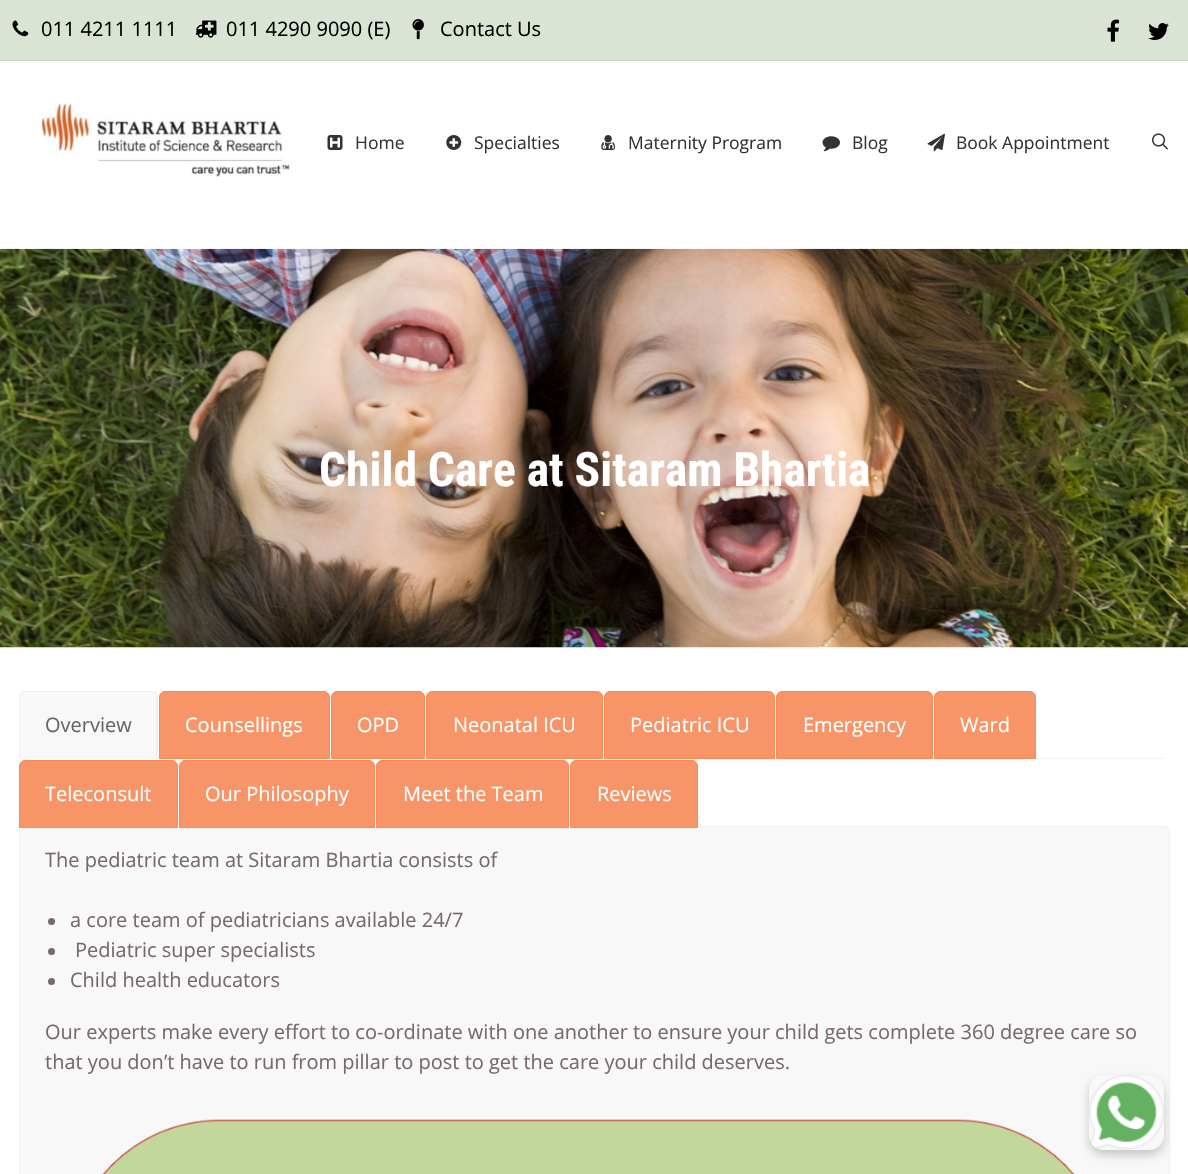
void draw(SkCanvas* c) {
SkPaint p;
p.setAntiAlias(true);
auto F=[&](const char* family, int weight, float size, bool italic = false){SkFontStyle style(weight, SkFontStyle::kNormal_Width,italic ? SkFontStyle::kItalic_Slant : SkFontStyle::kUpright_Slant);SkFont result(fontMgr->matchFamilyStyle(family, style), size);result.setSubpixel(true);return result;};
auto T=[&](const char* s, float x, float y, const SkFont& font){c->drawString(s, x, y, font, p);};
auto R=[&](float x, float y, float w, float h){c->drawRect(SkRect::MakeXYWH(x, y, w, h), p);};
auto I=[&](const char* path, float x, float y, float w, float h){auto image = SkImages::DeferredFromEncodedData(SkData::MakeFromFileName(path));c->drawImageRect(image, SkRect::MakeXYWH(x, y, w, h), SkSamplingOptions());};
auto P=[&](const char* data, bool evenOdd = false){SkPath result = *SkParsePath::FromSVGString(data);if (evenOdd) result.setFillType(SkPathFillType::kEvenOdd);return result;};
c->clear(0xffffffff);
p.setColor(0xffdae4d5);
R(0,0,1188,60);
p.setColor(0xffcad8c2);
R(0,60,1188,1);
I("1.png",12,20,17,17);
auto f1 = F("Open Sans",400,20);
p.setColor(0xff000000);
T("011 4211 1111",41,36,f1);
I("2.png",195,20,22,18);
T("011 4290 9090 (E)",226,36,f1);
I("3.png",412,19,12,21);
T("Contact Us",440,36,f1);
I("4.png",1107,19,12,23);
I("5.png",1148,23,21,17);
I("6.png",40,102,250,75);
I("7.png",327,135,16,15);
auto f2 = F("Open Sans",400,17.5);
p.setColor(0xff333333);
T("Home",355,149,f2);
I("8.png",446,135,16,15);
T("Specialties",474,149,f2);
I("9.png",601,135,14,15);
T("Maternity Program",628,149,f2);
I("10.png",822,136,18,16);
T("Blog",852,149,f2);
I("11.png",927,133,18,19);
T("Book Appointment",956,149,f2);
I("12.png",1152,133,16,17);
I("13.png",0,248,1188,400);
auto f3 = F("Roboto Condensed",700,47.5);
p.setColor(0xffffffff);
T("Child Care at Sitaram Bhartia",319,486,f3);
p.setColor(0xfff8f8f8);
c->drawPath(P("M25 691h127c3.5 0 6 2.5 6 6v62h-139v-62c0-3.5 2.5-6 6-6z"),p);
c->save();
c->clipRect(SkRect::MakeXYWH(19,691,1145,137));
p.setColor(0xfff0f0f0);
c->drawPath(P("M25 692c-1 0-3 1-4 2v-1c5-6 23-2 24-2h108l3 2l-1 1c-1-1-2-2-4-2z"),p);
c->restore();
c->drawPath(P("M156 693l2 2v64l-2-2v-59c0-1 0-3-1-4z"),p);
c->drawPath(P("M19 758v-60c0-2 1-4 2-5v1c-1 1-1 2-1 4v60z"),p);
p.setColor(0xff666666);
T("Overview",45,732,f1);
p.setColor(0xfff0f0f0);
R(19,758,1,1);
R(156,758,1008,1);
p.setColor(0xfff79468);
c->drawPath(P("M165 691.5h159c3 0 5.5 2.5 5.5 5.5v61.5h-170v-61.5c0-3 2.5-5.5 5.5-5.5z"),p);
p.setStroke(true);
p.setStrokeWidth(1);
p.setColor(0xfff68a59);
c->drawPath(P("M165 691.5h159c3 0 5.5 2.5 5.5 5.5v61.5h-170v-61.5c0-3 2.5-5.5 5.5-5.5z"),p);
p.setStroke(false);
p.setColor(0xffffffff);
T("Counsellings",185,732,f1);
p.setColor(0xfff79468);
c->drawPath(P("M337 691.5h82c3 0 5.5 2.5 5.5 5.5v61.5h-93v-61.5c0-3 2.5-5.5 5.5-5.5z"),p);
p.setStroke(true);
p.setColor(0xfff68a59);
c->drawPath(P("M337 691.5h82c3 0 5.5 2.5 5.5 5.5v61.5h-93v-61.5c0-3 2.5-5.5 5.5-5.5z"),p);
p.setStroke(false);
p.setColor(0xffffffff);
T("OPD",357,732,f1);
p.setColor(0xfff79468);
c->drawPath(P("M432 691.5h165c3 0 5.5 2.5 5.5 5.5v61.5h-176v-61.5c0-3 2.5-5.5 5.5-5.5z"),p);
p.setStroke(true);
p.setColor(0xfff68a59);
c->drawPath(P("M432 691.5h165c3 0 5.5 2.5 5.5 5.5v61.5h-176v-61.5c0-3 2.5-5.5 5.5-5.5z"),p);
p.setStroke(false);
p.setColor(0xffffffff);
T("Neonatal ICU",453,732,f1);
p.setColor(0xfff79468);
c->drawPath(P("M610 691.5h159c3 0 5.5 2.5 5.5 5.5v61.5h-170v-61.5c0-3 2.5-5.5 5.5-5.5z"),p);
p.setStroke(true);
p.setColor(0xfff68a59);
c->drawPath(P("M610 691.5h159c3 0 5.5 2.5 5.5 5.5v61.5h-170v-61.5c0-3 2.5-5.5 5.5-5.5z"),p);
p.setStroke(false);
p.setColor(0xffffffff);
T("Pediatric ICU",630,732,f1);
p.setColor(0xfff79468);
c->drawPath(P("M782 691.5h145c3 0 5.5 2.5 5.5 5.5v61.5h-156v-61.5c0-3 2.5-5.5 5.5-5.5z"),p);
p.setStroke(true);
p.setColor(0xfff68a59);
c->drawPath(P("M782 691.5h145c3 0 5.5 2.5 5.5 5.5v61.5h-156v-61.5c0-3 2.5-5.5 5.5-5.5z"),p);
p.setStroke(false);
p.setColor(0xffffffff);
T("Emergency",803,732,f1);
p.setColor(0xfff79468);
c->drawPath(P("M940 691.5h90c3 0 5.5 2.5 5.5 5.5v61.5h-101v-61.5c0-3 2.5-5.5 5.5-5.5z"),p);
p.setStroke(true);
p.setColor(0xfff68a59);
c->drawPath(P("M940 691.5h90c3 0 5.5 2.5 5.5 5.5v61.5h-101v-61.5c0-3 2.5-5.5 5.5-5.5z"),p);
p.setStroke(false);
p.setColor(0xffffffff);
T("Ward",960,732,f1);
p.setColor(0xfff8f8f8);
c->drawPath(P("M19.5 826.5h1144.5c3 0 5.5 2.5 5.5 5.5v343c0 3-2.5 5.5-5.5 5.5h-1139c-3 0-5.5-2.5-5.5-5.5z"),p);
p.setStroke(true);
p.setColor(0xfff0f0f0);
c->drawPath(P("M19.5 826.5h1144.5c3 0 5.5 2.5 5.5 5.5v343c0 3-2.5 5.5-5.5 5.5h-1139c-3 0-5.5-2.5-5.5-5.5z"),p);
p.setStroke(false);
p.setColor(0xfff79468);
c->drawPath(P("M25 760.5h147c3 0 5.5 2.5 5.5 5.5v61.5h-158v-61.5c0-3 2.5-5.5 5.5-5.5z"),p);
p.setStroke(true);
p.setColor(0xfff68a59);
c->drawPath(P("M25 760.5h147c3 0 5.5 2.5 5.5 5.5v61.5h-158v-61.5c0-3 2.5-5.5 5.5-5.5z"),p);
p.setStroke(false);
p.setColor(0xffffffff);
T("Teleconsult",45,801,f1);
p.setColor(0xfff79468);
c->drawPath(P("M185 760.5h184c3 0 5.5 2.5 5.5 5.5v61.5h-195v-61.5c0-3 2.5-5.5 5.5-5.5z"),p);
p.setStroke(true);
p.setColor(0xfff68a59);
c->drawPath(P("M185 760.5h184c3 0 5.5 2.5 5.5 5.5v61.5h-195v-61.5c0-3 2.5-5.5 5.5-5.5z"),p);
p.setStroke(false);
p.setColor(0xffffffff);
T("Our Philosophy",205,801,f1);
p.setColor(0xfff79468);
c->drawPath(P("M382 760.5h181c3 0 5.5 2.5 5.5 5.5v61.5h-192v-61.5c0-3 2.5-5.5 5.5-5.5z"),p);
p.setStroke(true);
p.setColor(0xfff68a59);
c->drawPath(P("M382 760.5h181c3 0 5.5 2.5 5.5 5.5v61.5h-192v-61.5c0-3 2.5-5.5 5.5-5.5z"),p);
p.setStroke(false);
p.setColor(0xffffffff);
T("Meet the Team",403,801,f1);
p.setColor(0xfff79468);
c->drawPath(P("M576 760.5h116c3 0 5.5 2.5 5.5 5.5v61.5h-127v-61.5c0-3 2.5-5.5 5.5-5.5z"),p);
p.setStroke(true);
p.setColor(0xfff68a59);
c->drawPath(P("M576 760.5h116c3 0 5.5 2.5 5.5 5.5v61.5h-127v-61.5c0-3 2.5-5.5 5.5-5.5z"),p);
p.setStroke(false);
p.setColor(0xffffffff);
T("Reviews",597,801,f1);
p.setColor(0xff776969);
T("The pediatric team at Sitaram Bhartia consists of",45,867,f1);
c->drawCircle(51.5,921.5,3.5,p);
T("a core team of pediatricians available 24/7",70,927,f1);
c->drawCircle(51.5,951.5,3.5,p);
T("Pediatric super specialists",75,957,f1);
c->drawCircle(51.5,981.5,3.5,p);
T("Child health educators",70,987,f1);
T("Our experts make every effort to co-ordinate with one another to ensure your child gets complete 360 degree care so",45,1039,f1);
T("that you don’t have to run from pillar to post to get the care your child deserves.",45,1069,f1);
I("14.png",102,1119,973,55);
c->save();
c->clipPath(P("M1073 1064h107v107h-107zm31 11h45c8.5 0 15 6.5 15 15v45c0 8.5-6.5 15-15 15h-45c-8.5 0-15-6.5-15-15v-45c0-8.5 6.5-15 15-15z",true),true);
p.setColor(0x33000000);
p.setMaskFilter(SkMaskFilter::MakeBlur(kNormal_SkBlurStyle, 5));
c->drawRoundRect(SkRect::MakeXYWH(1089,1080,75,75),15,15,p);
p.setMaskFilter(nullptr);
c->restore();
I("15.png",1089,1075,75,75);
}
